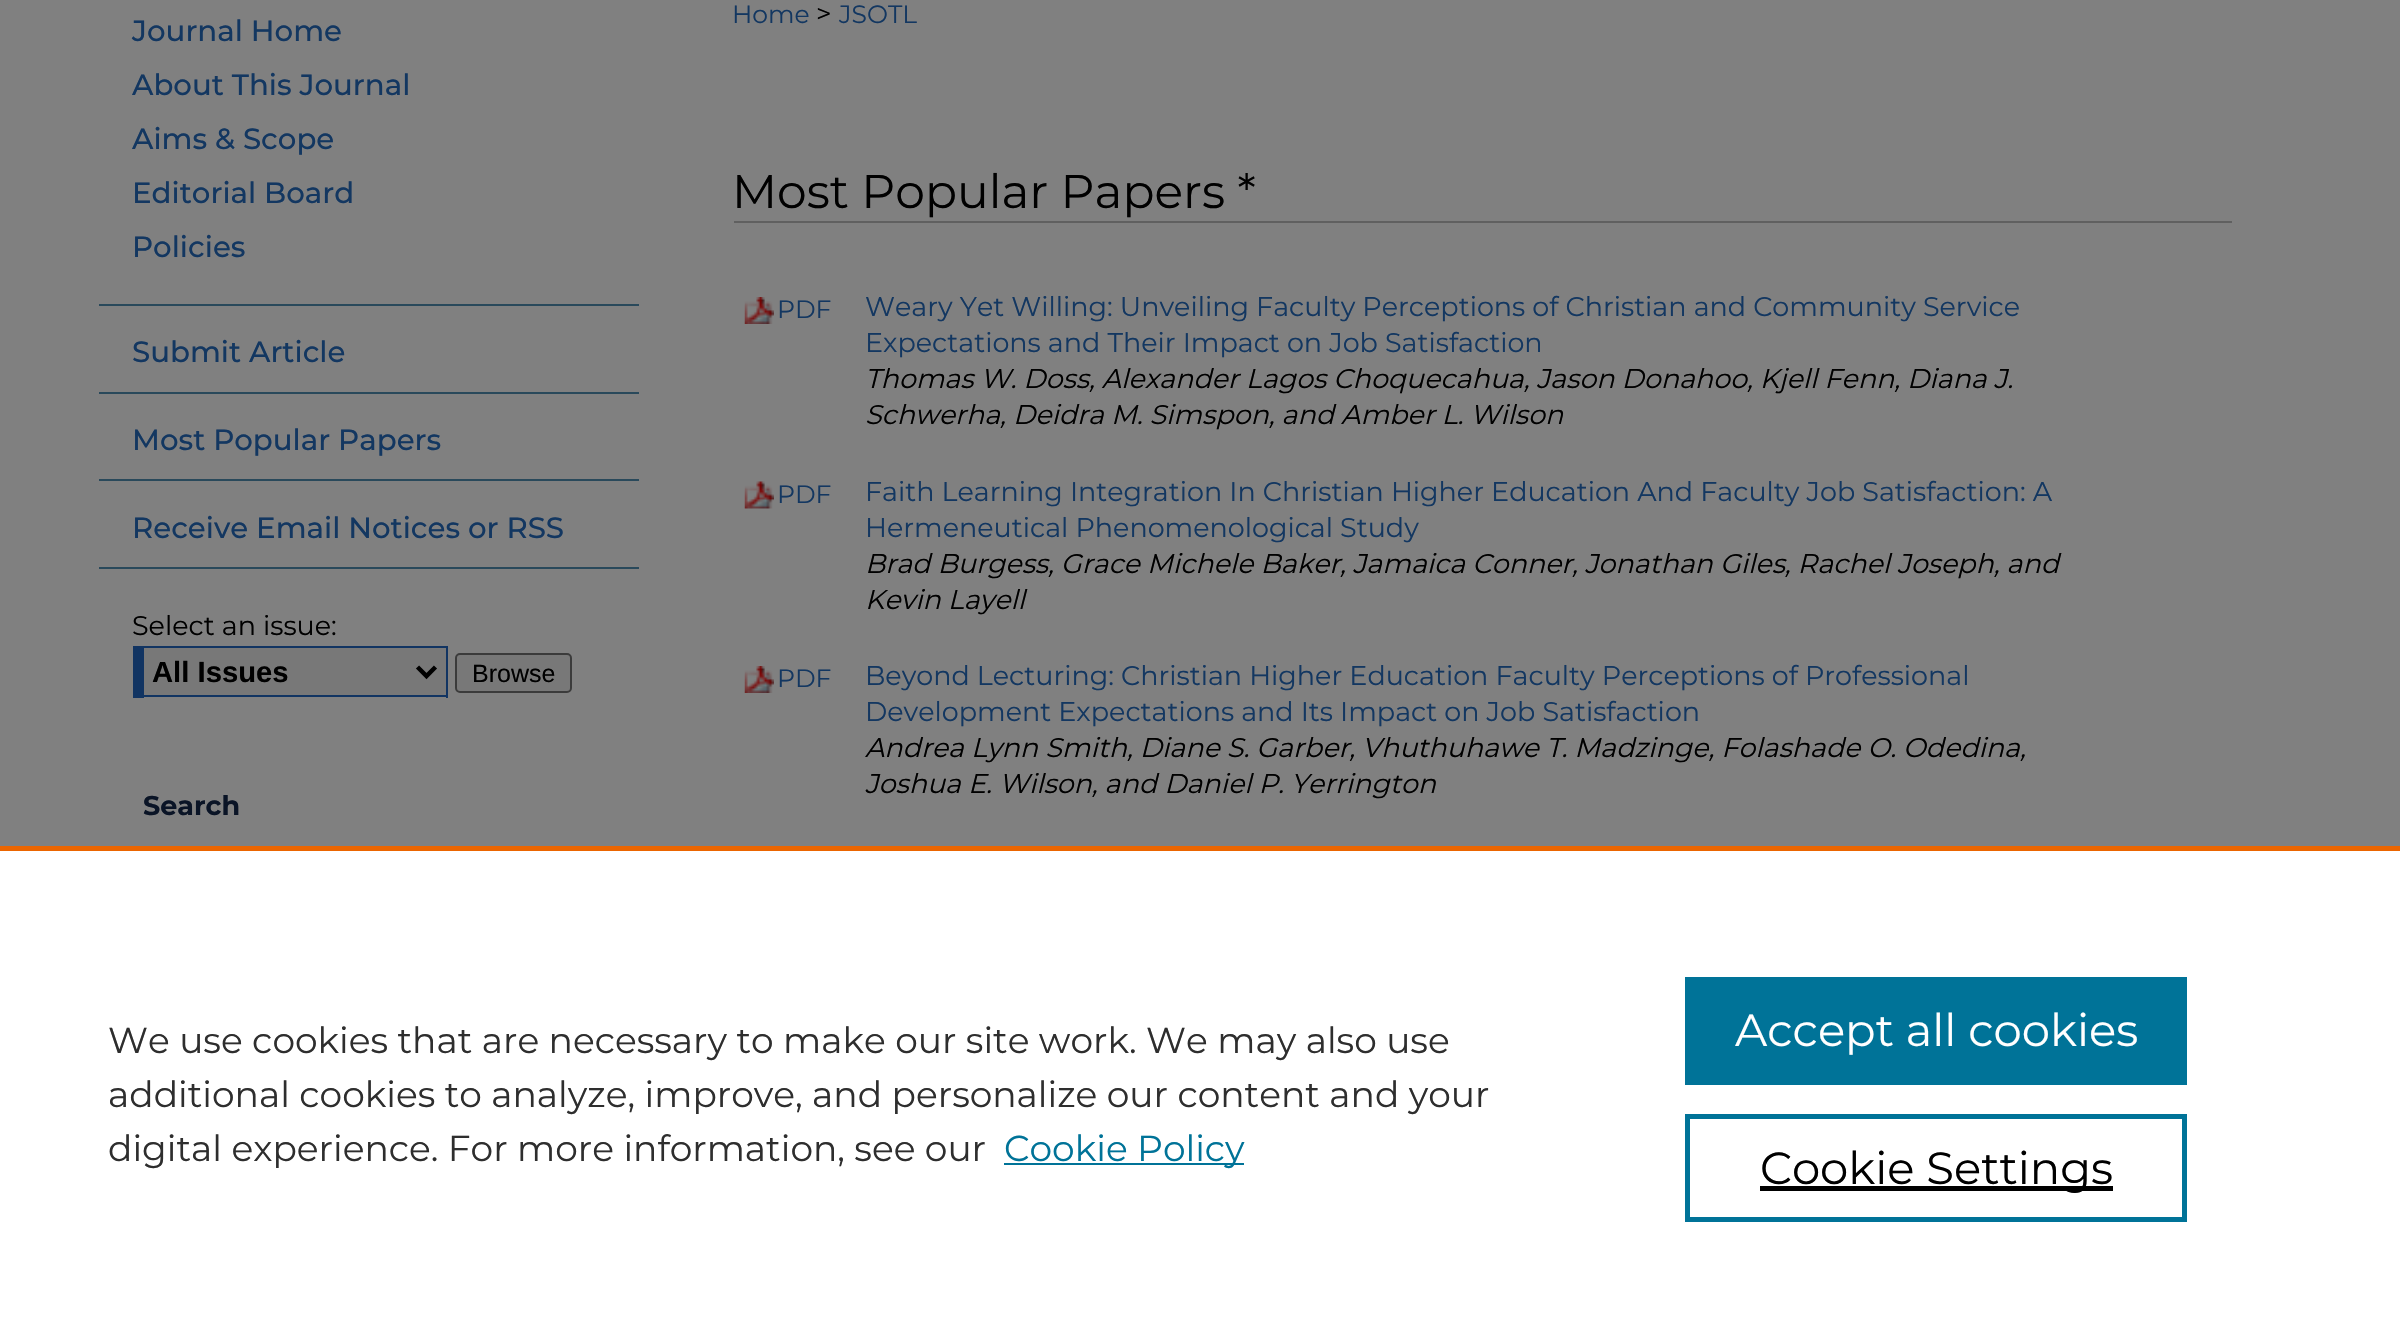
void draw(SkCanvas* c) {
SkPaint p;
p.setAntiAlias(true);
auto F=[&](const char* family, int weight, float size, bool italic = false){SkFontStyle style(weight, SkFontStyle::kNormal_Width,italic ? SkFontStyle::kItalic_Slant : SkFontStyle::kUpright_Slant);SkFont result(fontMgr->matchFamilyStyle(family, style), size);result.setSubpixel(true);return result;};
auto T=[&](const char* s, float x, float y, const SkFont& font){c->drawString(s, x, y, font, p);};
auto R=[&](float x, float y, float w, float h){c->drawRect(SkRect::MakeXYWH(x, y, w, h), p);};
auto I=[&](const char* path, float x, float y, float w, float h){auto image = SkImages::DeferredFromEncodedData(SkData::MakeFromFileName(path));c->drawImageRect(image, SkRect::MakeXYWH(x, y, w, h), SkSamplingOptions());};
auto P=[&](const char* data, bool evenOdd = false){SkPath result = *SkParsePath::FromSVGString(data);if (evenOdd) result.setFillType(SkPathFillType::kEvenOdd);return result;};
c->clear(0xff808080);
auto f1 = F("Montserrat",500,29.25);
p.setColor(0xff133761);
T("Journal Home",132,41,f1);
T("About This Journal",132,95,f1);
T("Aims & Scope",132,149,f1);
T("Editorial Board",132,203,f1);
T("Policies",132,257,f1);
p.setColor(0xff29495b);
R(99,304,540,2);
R(99,392,540,2);
p.setColor(0xff133761);
T("Submit Article",132,362,f1);
p.setColor(0xff29495b);
R(99,479,540,2);
p.setColor(0xff133761);
T("Most Popular Papers",132,450,f1);
p.setColor(0xff29495b);
R(99,567,540,2);
p.setColor(0xff133761);
T("Receive Email Notices or RSS",132,538,f1);
auto f2 = F("Montserrat",400,27);
p.setColor(0xff000000);
T("Select an issue:",132,635,f2);
p.setColor(0xff787878);
R(144,648,302,47);
p.setColor(0xff113462);
R(144,646,304,2);
R(446,646,2,52);
R(144,695,304,2);
R(133,646,11,52);
p.setStroke(true);
p.setStrokeWidth(4.5);
p.setColor(0xff000000);
c->drawPath(P("M417.5 667l9 9l9-9"),p);
auto f3 = F("Liberation Sans",700,29.25);
p.setStroke(false);
T("All Issues",152,682,f3);
p.setColor(0xff787878);
c->drawRoundRect(SkRect::MakeXYWH(456,654,115,38),4,4,p);
p.setStroke(true);
p.setStrokeWidth(2);
p.setColor(0xff3b3b3b);
c->drawRoundRect(SkRect::MakeXYWH(456,654,115,38),4,4,p);
auto f4 = F("Liberation Sans",400,25);
p.setStroke(false);
p.setColor(0xff000000);
T("Browse",472,682,f4);
auto f5 = F("Montserrat",700,27);
p.setColor(0xff0a1426);
T("Search",143,815,f5);
auto f6 = F("Montserrat",400,25);
p.setColor(0xff133761);
T("Home",732,23,f6);
p.setColor(0xff000000);
T(">",816,23,f2);
p.setColor(0xff133761);
T("JSOTL",839,23,f6);
p.setColor(0xff606060);
R(734,221,1498,2);
auto f7 = F("Montserrat",400,47.25);
p.setColor(0xff000000);
T("Most Popular Papers *",732,208,f7);
I("1.png",744,297,30,27);
p.setColor(0xff133761);
T("PDF",777,318,f6);
T("Weary Yet Willing: Unveiling Faculty Perceptions of Christian and Community Service",865,316,f2);
T("Expectations and Their Impact on Job Satisfaction",865,352,f2);
auto f8 = F("Montserrat",400,27,true);
p.setColor(0xff000000);
T("Thomas W. Doss, Alexander Lagos Choquecahua, Jason Donahoo, Kjell Fenn, Diana J.",865,388,f8);
T("Schwerha, Deidra M. Simspon, and Amber L. Wilson",865,424,f8);
I("2.png",744,481,30,28);
p.setColor(0xff133761);
T("PDF",777,503,f6);
T("Faith Learning Integration In Christian Higher Education And Faculty Job Satisfaction: A",865,501,f2);
T("Hermeneutical Phenomenological Study",865,537,f2);
p.setColor(0xff000000);
T("Brad Burgess, Grace Michele Baker, Jamaica Conner, Jonathan Giles, Rachel Joseph, and",865,573,f8);
T("Kevin Layell",865,609,f8);
I("1.png",744,666,30,27);
p.setColor(0xff133761);
T("PDF",777,687,f6);
T("Beyond Lecturing: Christian Higher Education Faculty Perceptions of Professional",865,685,f2);
T("Development Expectations and Its Impact on Job Satisfaction",865,721,f2);
p.setColor(0xff000000);
T("Andrea Lynn Smith, Diane S. Garber, Vhuthuhawe T. Madzinge, Folashade O. Odedina,",865,757,f8);
T("Joshua E. Wilson, and Daniel P. Yerrington",865,793,f8);
p.setColor(0xffffffff);
R(0,851,2400,488);
p.setColor(0xffeb6500);
R(0,846,2400,5);
auto f9 = F("Montserrat",400,36);
p.setColor(0xff2e2e2e);
T("We use cookies that are necessary to make our site work. We may also use",108,1053,f9);
T("additional cookies to analyze, improve, and personalize our content and your",108,1107,f9);
T("digital experience. For more information, see our",108,1161,f9);
p.setColor(0xff007398);
R(1004,1163,240,2);
T("Cookie Policy",1004,1161,f9);
R(1685,977,502,108);
auto f10 = F("Montserrat",400,45);
p.setColor(0xffffffff);
T("Accept all cookies",1735,1046,f10);
p.setStroke(true);
p.setStrokeWidth(5);
p.setColor(0xff007398);
c->drawRect(SkRect::MakeXYWH(1687.5,1116.5,497,103),p);
p.setStroke(false);
p.setColor(0xff000000);
R(1760,1186,353,5);
T("Cookie Settings",1760,1184,f10);
}
